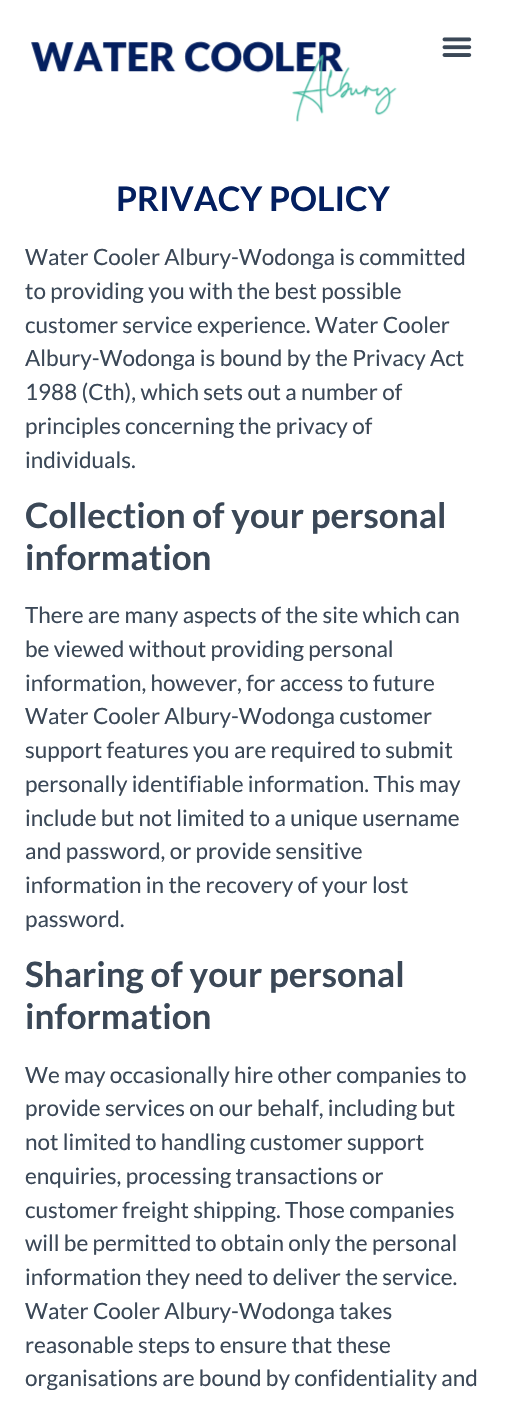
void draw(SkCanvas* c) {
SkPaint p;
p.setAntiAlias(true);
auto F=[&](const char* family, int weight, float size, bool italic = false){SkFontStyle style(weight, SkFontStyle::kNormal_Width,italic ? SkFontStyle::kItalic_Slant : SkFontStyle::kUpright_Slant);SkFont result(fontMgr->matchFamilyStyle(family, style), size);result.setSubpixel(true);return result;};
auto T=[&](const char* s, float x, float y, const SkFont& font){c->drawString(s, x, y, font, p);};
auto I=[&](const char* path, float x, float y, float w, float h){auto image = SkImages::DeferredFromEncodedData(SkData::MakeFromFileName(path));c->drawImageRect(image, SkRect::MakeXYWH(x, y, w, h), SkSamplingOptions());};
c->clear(0xffffffff);
I("1.png",31,41,366,81);
I("2.png",442,37,30,20);
auto f1 = F("Lato",700,33.75);
p.setColor(0xff031f60);
T("PRIVACY POLICY",116,211,f1);
auto f2 = F("Lato",400,22.5);
p.setColor(0xff3b4857);
T("Water Cooler Albury-Wodonga is committed",25,265,f2);
T("to providing you with the best possible",25,299,f2);
T("customer service experience. Water Cooler",25,333,f2);
T("Albury-Wodonga is bound by the Privacy Act",25,366,f2);
T("1988 (Cth), which sets out a number of",25,400,f2);
T("principles concerning the privacy of",25,434,f2);
T("individuals.",25,468,f2);
auto f3 = F("Lato",700,35);
T("Collection of your personal",25,528,f3);
T("information",25,570,f3);
T("There are many aspects of the site which can",25,623,f2);
T("be viewed without providing personal",25,657,f2);
T("information, however, for access to future",25,691,f2);
T("Water Cooler Albury-Wodonga customer",25,724,f2);
T("support features you are required to submit",25,758,f2);
T("personally identifiable information. This may",25,792,f2);
T("include but not limited to a unique username",25,826,f2);
T("and password, or provide sensitive",25,859,f2);
T("information in the recovery of your lost",25,893,f2);
T("password.",25,927,f2);
T("Sharing of your personal",25,987,f3);
T("information",25,1029,f3);
T("We may occasionally hire other companies to",25,1083,f2);
T("provide services on our behalf, including but",25,1116,f2);
T("not limited to handling customer support",25,1150,f2);
T("enquiries, processing transactions or",25,1184,f2);
T("customer freight shipping. Those companies",25,1218,f2);
T("will be permitted to obtain only the personal",25,1251,f2);
T("information they need to deliver the service.",25,1285,f2);
T("Water Cooler Albury-Wodonga takes",25,1319,f2);
T("reasonable steps to ensure that these",25,1353,f2);
T("organisations are bound by confidentiality and",25,1386,f2);
}
